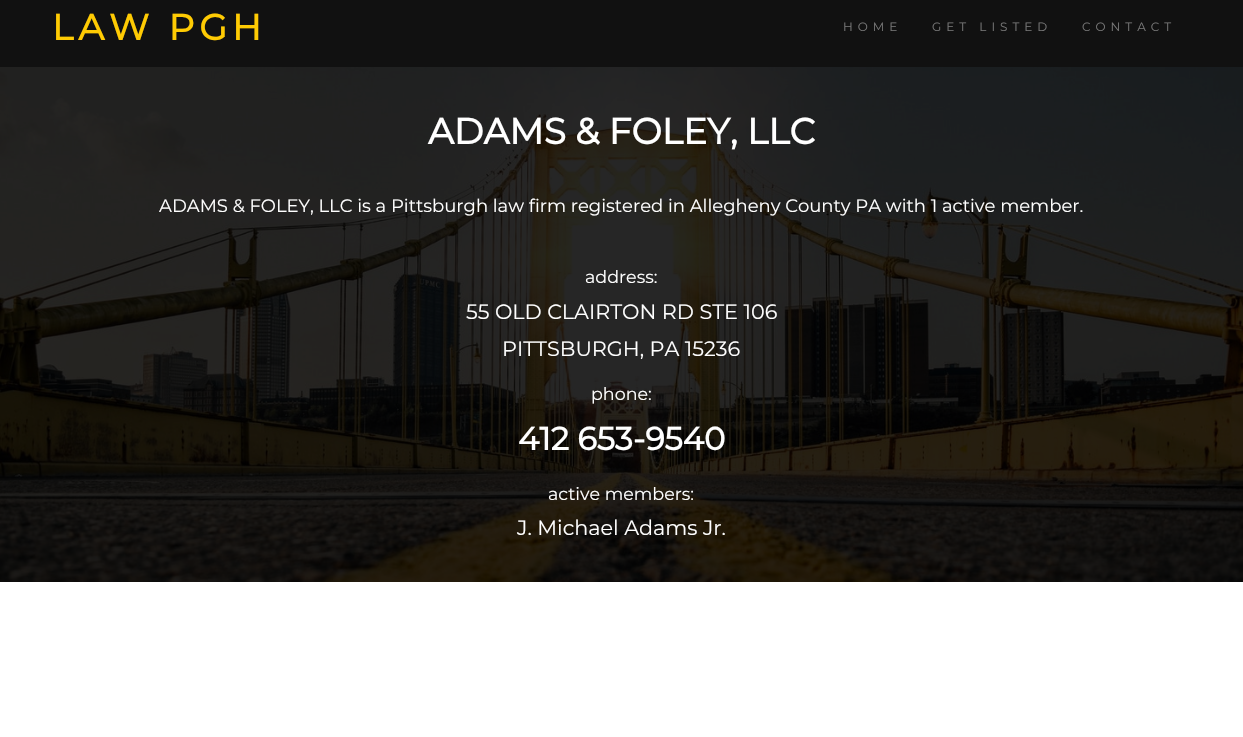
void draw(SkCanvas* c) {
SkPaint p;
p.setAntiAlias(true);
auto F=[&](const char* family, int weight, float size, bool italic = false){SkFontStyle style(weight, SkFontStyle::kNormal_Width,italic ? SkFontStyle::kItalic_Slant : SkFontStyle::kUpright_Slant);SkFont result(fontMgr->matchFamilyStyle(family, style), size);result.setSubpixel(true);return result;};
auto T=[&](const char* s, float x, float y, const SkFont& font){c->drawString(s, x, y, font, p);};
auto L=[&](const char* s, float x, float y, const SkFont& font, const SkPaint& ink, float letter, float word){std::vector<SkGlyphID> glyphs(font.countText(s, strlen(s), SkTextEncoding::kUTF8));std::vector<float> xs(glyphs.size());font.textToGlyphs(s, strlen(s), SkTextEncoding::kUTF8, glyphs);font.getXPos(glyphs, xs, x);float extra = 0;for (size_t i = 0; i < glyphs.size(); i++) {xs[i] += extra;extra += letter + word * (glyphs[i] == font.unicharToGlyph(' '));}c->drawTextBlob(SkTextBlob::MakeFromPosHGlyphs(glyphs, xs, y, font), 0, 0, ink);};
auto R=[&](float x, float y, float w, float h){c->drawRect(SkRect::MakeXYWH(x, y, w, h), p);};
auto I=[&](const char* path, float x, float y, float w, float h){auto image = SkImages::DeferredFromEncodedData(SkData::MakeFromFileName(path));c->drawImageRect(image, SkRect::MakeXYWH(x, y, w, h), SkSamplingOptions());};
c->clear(0xffffffff);
p.setColor(0xff111111);
R(0,0,1243,67);
auto f1 = F("Montserrat",700,36);
p.setColor(0xffffcb03);
L("LAW PGH",52,40,f1,p,5,0);
auto f2 = F("Montserrat",100,12);
p.setColor(0xff777777);
L("HOME",843,31,f2,p,5,0);
L("GET LISTED",932,31,f2,p,5,0);
L("CONTACT",1082,31,f2,p,5,0);
I("1.png",0,67,1243,515);
p.setColor(0xffffffff);
T("ADAMS & FOLEY, LLC",428,144,f1);
auto f3 = F("Montserrat",100,18);
T("ADAMS & FOLEY, LLC is a Pittsburgh law firm registered in Allegheny County PA with 1 active member.",159,212,f3);
auto f4 = F("Montserrat",100,17.5);
T("address:",585,283,f4);
auto f5 = F("Montserrat",100,20.75);
T("55 OLD CLAIRTON RD STE 106",466,319,f5);
T("PITTSBURGH, PA 15236",502,356,f5);
T("phone:",591,400,f4);
auto f6 = F("Montserrat",700,32);
T("412 653-9540",518,450,f6);
T("active members:",548,500,f4);
T("J. Michael Adams Jr.",517,535,f5);
}
